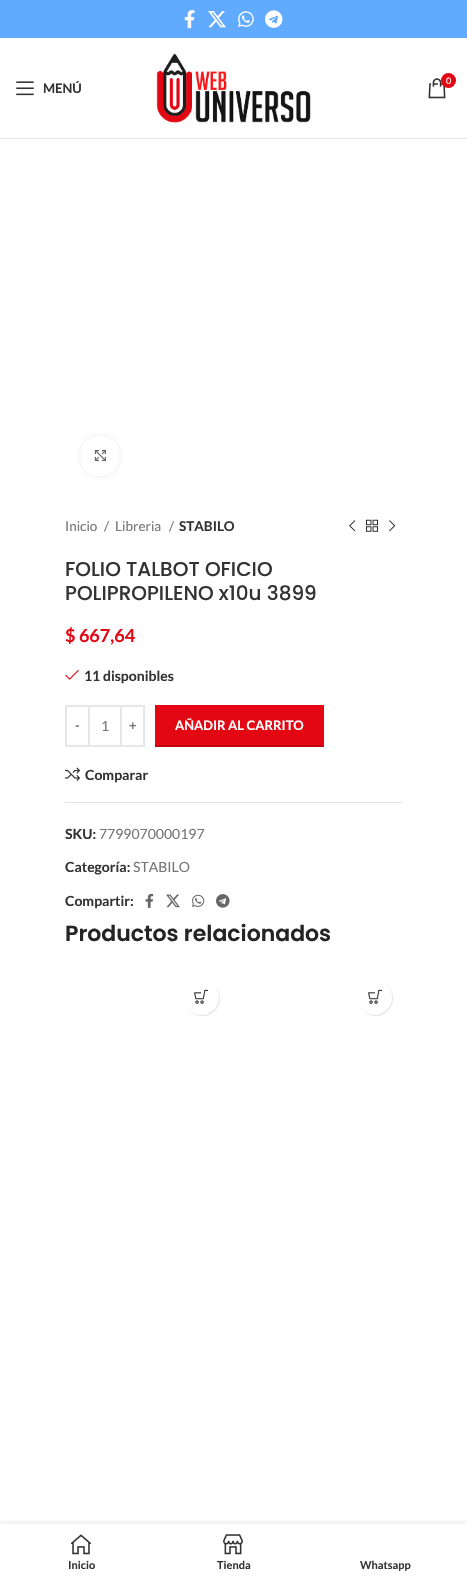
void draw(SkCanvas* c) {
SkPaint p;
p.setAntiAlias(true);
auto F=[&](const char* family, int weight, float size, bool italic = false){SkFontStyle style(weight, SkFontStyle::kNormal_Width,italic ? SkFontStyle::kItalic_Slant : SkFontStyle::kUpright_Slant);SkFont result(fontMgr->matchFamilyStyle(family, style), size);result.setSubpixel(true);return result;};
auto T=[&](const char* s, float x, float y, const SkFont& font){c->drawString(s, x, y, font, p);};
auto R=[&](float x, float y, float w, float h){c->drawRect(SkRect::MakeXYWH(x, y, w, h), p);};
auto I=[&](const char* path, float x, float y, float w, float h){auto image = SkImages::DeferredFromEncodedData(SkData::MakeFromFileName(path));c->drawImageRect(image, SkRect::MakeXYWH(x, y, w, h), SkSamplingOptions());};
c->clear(0xffffffff);
p.setColor(0xff60abff);
R(0,0,467,38);
I("1.png",184,10,11,19);
I("2.png",208,11,18,17);
I("3.png",238,11,16,16);
I("4.png",265,10,18,18);
p.setColor(0xffe8e8e8);
R(0,138,467,1);
I("5.png",16,81,18,15);
auto f1 = F("Lato",700,13);
p.setColor(0xff333333);
T("MENÚ",43,93,f1);
I("6.png",156,53,155,70);
I("7.png",428,78,18,21);
p.setColor(0xffe30613);
c->drawCircle(448.5,80.5,7.5,p);
auto f2 = F("Lato",400,9);
p.setColor(0xffffffff);
T("0",446,84,f2);
p.setColor(0x14000000);
p.setMaskFilter(SkMaskFilter::MakeBlur(kNormal_SkBlurStyle, 2.5));
c->drawRoundRect(SkRect::MakeXYWH(80,436,40,40),20,20,p);
p.setMaskFilter(nullptr);
p.setColor(0xffffffff);
c->drawCircle(100,456,20,p);
I("8.png",94,449,12,13);
auto f3 = F("Lato",400,13.5);
p.setColor(0xff767676);
T("Inicio",65,531,f3);
T("/",104,531,f3);
T("Libreria",115,531,f3);
T("/",169,531,f3);
auto f4 = F("Lato",700,13.5);
p.setColor(0xff333333);
T("STABILO",179,531,f4);
I("9.png",349,520,7,12);
I("10.png",366,519,12,13);
I("11.png",389,520,7,12);
auto f5 = F("Poppins",500,20);
T("FOLIO TALBOT OFICIO",65,576,f5);
T("POLIPROPILENO x10u 3899",65,600,f5);
auto f6 = F("Lato",700,18);
p.setColor(0xffe30613);
T("$ 667,64",65,642,f6);
I("12.png",65,669,14,11);
auto f7 = F("Lato",700,14);
p.setColor(0xff333333);
T("11 disponibles",84,681,f7);
p.setStroke(true);
p.setStrokeWidth(2);
p.setColor(0xffe6e6e6);
c->drawRect(SkRect::MakeXYWH(66,706,23,40),p);
p.setStroke(false);
p.setColor(0xff767676);
T("-",75,730,f1);
p.setColor(0xffe6e6e6);
R(90,705,30,2);
R(90,745,30,2);
auto f8 = F("Lato",400,14);
p.setColor(0xff767676);
T("1",101,731,f8);
p.setStroke(true);
p.setColor(0xffe6e6e6);
c->drawRect(SkRect::MakeXYWH(121,706,23,40),p);
p.setStroke(false);
p.setColor(0xff767676);
T("+",129,730,f1);
p.setColor(0xffe30613);
R(155,705,169,40);
p.setColor(0xffc10510);
R(155,745,169,2);
p.setColor(0xffffffff);
T("AÑADIR AL CARRITO",175,730,f1);
I("13.png",65,767,15,14);
p.setColor(0xff333333);
T("Comparar",85,780,f7);
p.setColor(0xffe4e4e4);
R(65,802,337,1);
p.setColor(0xff333333);
T("SKU:",65,839,f7);
p.setColor(0xff767676);
T("7799070000197",99,839,f8);
p.setColor(0xff333333);
T("Categoría:",65,872,f7);
p.setColor(0xff767676);
T("STABILO",133,872,f8);
p.setColor(0xff333333);
T("Compartir:",65,906,f7);
I("14.png",145,893,9,15);
I("15.png",166,894,14,14);
I("16.png",192,894,13,13);
I("17.png",216,894,14,14);
auto f9 = F("Poppins",600,22);
p.setColor(0xff242424);
T("Productos relacionados",65,941,f9);
p.setColor(0x1a000000);
p.setMaskFilter(SkMaskFilter::MakeBlur(kNormal_SkBlurStyle, .5));
c->drawRoundRect(SkRect::MakeXYWH(185,981,35,35),17.5,17.5,p);
p.setMaskFilter(nullptr);
p.setColor(0xffffffff);
c->drawCircle(201.5,997.5,17.5,p);
I("18.png",194,989,14,15);
p.setColor(0x1a000000);
p.setMaskFilter(SkMaskFilter::MakeBlur(kNormal_SkBlurStyle, .5));
c->drawRoundRect(SkRect::MakeXYWH(358,981,35,35),17.5,17.5,p);
p.setMaskFilter(nullptr);
p.setColor(0xffffffff);
c->drawCircle(374.5,997.5,17.5,p);
I("18.png",368,989,14,15);
c->save();
c->clipRect(SkRect::MakeXYWH(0,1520,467,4));
p.setColor(0x1f000000);
p.setMaskFilter(SkMaskFilter::MakeBlur(kNormal_SkBlurStyle, 4.5));
c->drawRect(SkRect::MakeXYWH(0,1524,467,55),p);
p.setMaskFilter(nullptr);
c->restore();
I("19.png",71,1534,20,21);
auto f10 = F("Lato",700,11);
p.setColor(0xff333333);
T("Inicio",68,1569,f10);
I("20.png",223,1534,20,21);
T("Tienda",217,1569,f10);
T("Whatsapp",360,1569,f10);
}
